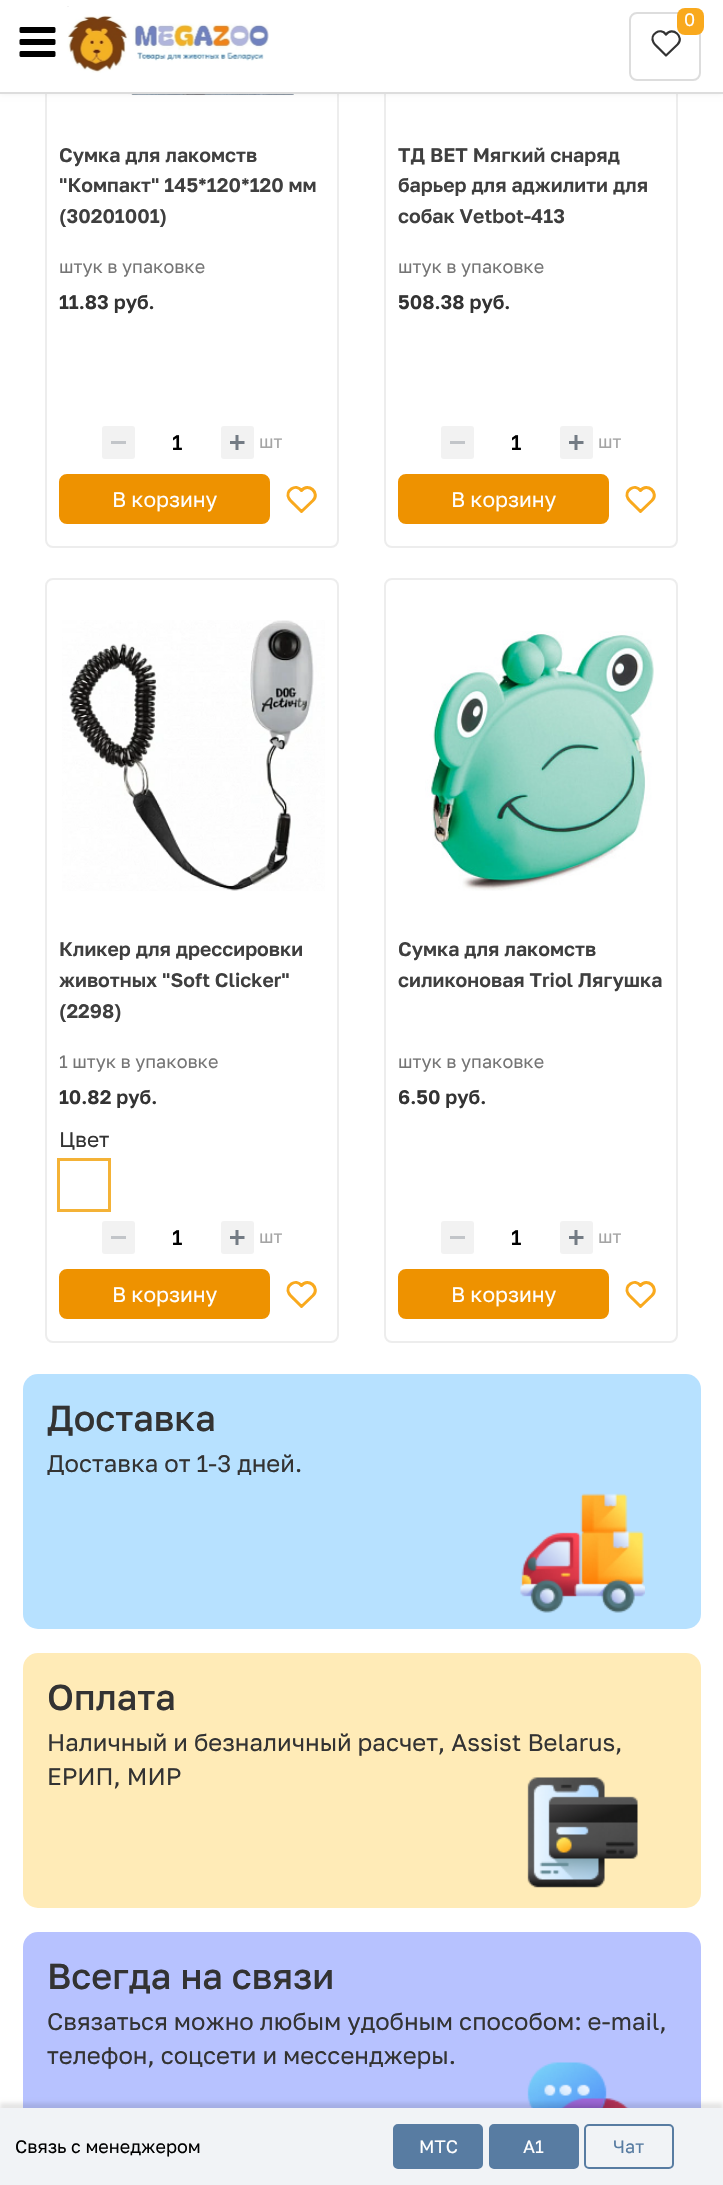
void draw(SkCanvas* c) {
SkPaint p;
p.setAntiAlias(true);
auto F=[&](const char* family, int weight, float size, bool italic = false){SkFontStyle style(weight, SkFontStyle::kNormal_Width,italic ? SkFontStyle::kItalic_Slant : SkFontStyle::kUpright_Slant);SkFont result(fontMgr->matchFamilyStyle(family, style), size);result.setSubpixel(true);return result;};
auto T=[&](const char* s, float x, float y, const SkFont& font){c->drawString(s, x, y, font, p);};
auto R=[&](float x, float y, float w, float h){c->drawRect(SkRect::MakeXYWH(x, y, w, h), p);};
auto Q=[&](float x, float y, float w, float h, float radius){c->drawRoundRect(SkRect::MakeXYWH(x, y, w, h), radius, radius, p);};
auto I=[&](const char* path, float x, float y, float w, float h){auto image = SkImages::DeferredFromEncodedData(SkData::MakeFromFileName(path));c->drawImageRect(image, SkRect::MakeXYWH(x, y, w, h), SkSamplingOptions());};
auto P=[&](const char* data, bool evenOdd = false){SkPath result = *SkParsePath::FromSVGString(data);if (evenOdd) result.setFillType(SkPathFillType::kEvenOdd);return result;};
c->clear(0xffffffff);
p.setStroke(true);
p.setStrokeWidth(2);
p.setColor(0xffededed);
c->drawRoundRect(SkRect::MakeXYWH(46,-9,292,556),7,7,p);
I("2.png",128,94,193,1);
c->drawRoundRect(SkRect::MakeXYWH(385,-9,292,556),7,7,p);
p.setStroke(false);
p.setColor(0x14000000);
p.setMaskFilter(SkMaskFilter::MakeBlur(kNormal_SkBlurStyle, 3));
c->drawRect(SkRect::MakeXYWH(0,0,723,93),p);
p.setMaskFilter(nullptr);
p.setColor(0xffffffff);
R(0,0,723,92);
p.setColor(0xffdddddd);
R(0,92,723,2);
I("1.png",67,6,202,67);
p.setStroke(true);
c->drawRoundRect(SkRect::MakeXYWH(630,13,70,67),7,7,p);
p.setStrokeWidth(2.2);
p.setStrokeCap(SkPaint::kRound_Cap);
p.setStrokeJoin(SkPaint::kRound_Join);
p.setColor(0xff333333);
c->drawPath(P("M677.5 44.5l-11.5 11l-7.5-7.5c-1.5-1.5-4-3.5-5-5.5c-4.5-8 7-15.5 12.5-8c6.5-8.5 19 2.5 11.5 10"),p);
p.setStroke(false);
p.setColor(0xfff9a91d);
Q(677,8,27,27,8);
auto f1 = F("Golos Text",400,18);
p.setColor(0xffffffff);
T("0",684,26,f1);
auto f2 = F("Golos Text",600,19.5);
p.setColor(0xff3f3f3f);
T("Сумка для лакомств",59,162,f2);
T("\"Компакт\" 145*120*120 мм",59,192,f2);
T("(30201001)",59,223,f2);
p.setColor(0xff757575);
T("штук в упаковке",59,273,f1);
p.setColor(0xff333333);
T("11.83 руб.",59,309,f2);
p.setColor(0xfff2f2f2);
Q(102,426,33,33,3);
p.setColor(0xffc2c5c9);
R(111,441,15,3);
auto f3 = F("Golos Text",500,21);
p.setColor(0xff000000);
T("1",172,450,f3);
p.setColor(0xfff2f2f2);
Q(221,426,33,33,3);
I("3.png",230,435,15,15);
p.setColor(0xffa5a5a5);
T("шт",259,448,f1);
p.setColor(0xffee9200);
c->drawRoundRect(SkRect::MakeXYWH(60,475,209,48),7,7,p);
p.setStroke(true);
p.setStrokeWidth(2);
p.setStrokeCap(SkPaint::kButt_Cap);
p.setStrokeJoin(SkPaint::kMiter_Join);
c->drawRoundRect(SkRect::MakeXYWH(60,475,209,48),7,7,p);
auto f4 = F("Golos Text",400,21);
p.setStroke(false);
p.setColor(0xffffffff);
T("В корзину",112,507,f4);
p.setStroke(true);
p.setStrokeWidth(3);
p.setStrokeCap(SkPaint::kRound_Cap);
p.setStrokeJoin(SkPaint::kRound_Join);
p.setColor(0xfff9a91d);
c->drawPath(P("M313 500.5l-11.5 11l-7.5-7.5c-1.5-1.5-4-3.5-5-5.5c-4.5-8 7-15.5 12.5-8c6.5-8.5 19 2.5 11.5 10"),p);
c->save();
c->clipRect(SkRect::MakeXYWH(398,140,267,91));
p.setStroke(false);
p.setColor(0xff3f3f3f);
T("ТД ВЕТ Мягкий снаряд",398,162,f2);
c->restore();
T("барьер для аджилити для",398,192,f2);
T("собак Vetbot-413",398,223,f2);
p.setColor(0xff757575);
T("штук в упаковке",398,273,f1);
p.setColor(0xff333333);
T("508.38 руб.",398,309,f2);
p.setColor(0xfff2f2f2);
Q(441,426,33,33,3);
p.setColor(0xffc2c5c9);
R(450,441,15,3);
p.setColor(0xff000000);
T("1",511,450,f3);
p.setColor(0xfff2f2f2);
Q(560,426,33,33,3);
I("3.png",569,435,15,15);
p.setColor(0xffa5a5a5);
T("шт",598,448,f1);
p.setColor(0xffee9200);
c->drawRoundRect(SkRect::MakeXYWH(399,475,209,48),7,7,p);
p.setStroke(true);
p.setStrokeWidth(2);
p.setStrokeCap(SkPaint::kButt_Cap);
p.setStrokeJoin(SkPaint::kMiter_Join);
c->drawRoundRect(SkRect::MakeXYWH(399,475,209,48),7,7,p);
p.setStroke(false);
p.setColor(0xffffffff);
T("В корзину",451,507,f4);
p.setStroke(true);
p.setStrokeWidth(3);
p.setStrokeCap(SkPaint::kRound_Cap);
p.setStrokeJoin(SkPaint::kRound_Join);
p.setColor(0xfff9a91d);
c->drawPath(P("M652 500.5l-11.5 11l-7.5-7.5c-1.5-1.5-4-3.5-5-5.5c-4.5-8 7-15.5 12.5-8c6.5-8.5 19 2.5 11.5 10"),p);
p.setStrokeWidth(2);
p.setStrokeCap(SkPaint::kButt_Cap);
p.setStrokeJoin(SkPaint::kMiter_Join);
p.setColor(0xffededed);
c->drawRoundRect(SkRect::MakeXYWH(46,579,292,763),7,7,p);
I("4.png",62,620,263,271);
p.setStroke(false);
p.setColor(0xff3f3f3f);
T("Кликер для дрессировки",59,956,f2);
T("животных \"Soft Clicker\"",59,987,f2);
T("(2298)",59,1018,f2);
p.setColor(0xff757575);
T("1 штук в упаковке",59,1068,f1);
p.setColor(0xff333333);
T("10.82 руб.",59,1104,f2);
T("Цвет",59,1147,f4);
p.setStroke(true);
p.setStrokeWidth(3);
p.setColor(0xfff4b236);
c->drawRect(SkRect::MakeXYWH(58.5,1159.5,51,51),p);
p.setStroke(false);
p.setColor(0xfff2f2f2);
Q(102,1221,33,33,3);
p.setColor(0xffc2c5c9);
R(111,1236,15,3);
p.setColor(0xff000000);
T("1",172,1245,f3);
p.setColor(0xfff2f2f2);
Q(221,1221,33,33,3);
I("3.png",230,1230,15,15);
p.setColor(0xffa5a5a5);
T("шт",259,1243,f1);
p.setColor(0xffee9200);
c->drawRoundRect(SkRect::MakeXYWH(60,1270,209,48),7,7,p);
p.setStroke(true);
p.setStrokeWidth(2);
c->drawRoundRect(SkRect::MakeXYWH(60,1270,209,48),7,7,p);
p.setStroke(false);
p.setColor(0xffffffff);
T("В корзину",112,1302,f4);
p.setStroke(true);
p.setStrokeWidth(3);
p.setStrokeCap(SkPaint::kRound_Cap);
p.setStrokeJoin(SkPaint::kRound_Join);
p.setColor(0xfff9a91d);
c->drawPath(P("M313 1295.5l-11.5 11l-7.5-7.5c-1.5-1.5-4-3.5-5-5.5c-4.5-8 7-15.5 12.5-8c6.5-8.5 19 2.5 11.5 10"),p);
p.setStrokeWidth(2);
p.setStrokeCap(SkPaint::kButt_Cap);
p.setStrokeJoin(SkPaint::kMiter_Join);
p.setColor(0xffededed);
c->drawRoundRect(SkRect::MakeXYWH(385,579,292,763),7,7,p);
I("5.png",425,631,229,260);
p.setStroke(false);
p.setColor(0xff3f3f3f);
T("Сумка для лакомств",398,956,f2);
T("силиконовая Triol Лягушка",398,987,f2);
p.setColor(0xff757575);
T("штук в упаковке",398,1068,f1);
p.setColor(0xff333333);
T("6.50 руб.",398,1104,f2);
p.setColor(0xfff2f2f2);
Q(441,1221,33,33,3);
p.setColor(0xffc2c5c9);
R(450,1236,15,3);
p.setColor(0xff000000);
T("1",511,1245,f3);
p.setColor(0xfff2f2f2);
Q(560,1221,33,33,3);
I("3.png",569,1230,15,15);
p.setColor(0xffa5a5a5);
T("шт",598,1243,f1);
p.setColor(0xffee9200);
c->drawRoundRect(SkRect::MakeXYWH(399,1270,209,48),7,7,p);
p.setStroke(true);
c->drawRoundRect(SkRect::MakeXYWH(399,1270,209,48),7,7,p);
p.setStroke(false);
p.setColor(0xffffffff);
T("В корзину",451,1302,f4);
p.setStroke(true);
p.setStrokeWidth(3);
p.setStrokeCap(SkPaint::kRound_Cap);
p.setStrokeJoin(SkPaint::kRound_Join);
p.setColor(0xfff9a91d);
c->drawPath(P("M652 1295.5l-11.5 11l-7.5-7.5c-1.5-1.5-4-3.5-5-5.5c-4.5-8 7-15.5 12.5-8c6.5-8.5 19 2.5 11.5 10"),p);
p.setStroke(false);
p.setColor(0xffb7e1ff);
Q(23,1374,678,255,15);
I("6.png",520,1493,125,120);
auto f5 = F("Golos Text",500,36);
p.setColor(0xff333333);
T("Доставка",47,1431,f5);
auto f6 = F("Golos Text",400,24);
T("Доставка от 1-3 дней.",47,1472,f6);
p.setColor(0xffffebb7);
Q(23,1653,678,255,15);
I("7.png",527,1777,111,111);
p.setColor(0xff333333);
T("Оплата",47,1710,f5);
T("Наличный и безналичный расчет, Assist Belarus,",47,1751,f6);
T("ЕРИП, МИР",47,1785,f6);
p.setColor(0xffb7c2ff);
Q(23,1932,678,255,15);
I("8.png",527,2062,102,46);
p.setColor(0xff333333);
T("Всегда на связи",47,1989,f5);
T("Связаться можно любым удобным способом: e-mail,",47,2030,f6);
T("телефон, соцсети и мессенджеры.",47,2064,f6);
p.setColor(0x1a040303);
p.setMaskFilter(SkMaskFilter::MakeBlur(kNormal_SkBlurStyle, 2));
c->drawRect(SkRect::MakeXYWH(0,2103,723,78),p);
p.setMaskFilter(nullptr);
p.setColor(0xfff1f3f6);
R(0,2108,723,77);
p.setColor(0xff000000);
T("Связь с менеджером",15,2153,f1);
p.setColor(0xff587ca2);
c->drawRoundRect(SkRect::MakeXYWH(394,2125,88,43),4,4,p);
p.setStroke(true);
p.setStrokeWidth(2);
p.setStrokeCap(SkPaint::kButt_Cap);
p.setStrokeJoin(SkPaint::kMiter_Join);
c->drawRoundRect(SkRect::MakeXYWH(394,2125,88,43),4,4,p);
p.setStroke(false);
p.setColor(0xffffffff);
T("МТС",419,2153,f1);
p.setColor(0xff587ca2);
c->drawRoundRect(SkRect::MakeXYWH(490,2125,88,43),4,4,p);
p.setStroke(true);
c->drawRoundRect(SkRect::MakeXYWH(490,2125,88,43),4,4,p);
p.setStroke(false);
p.setColor(0xffffffff);
T("A1",523,2153,f1);
p.setStroke(true);
p.setColor(0xff587ca2);
c->drawRoundRect(SkRect::MakeXYWH(585,2125,88,43),4,4,p);
p.setStroke(false);
T("Чат",613,2153,f1);
p.setColor(0xffffffff);
R(67,34,1,3);
I("9.png",19,27,37,30);
}
